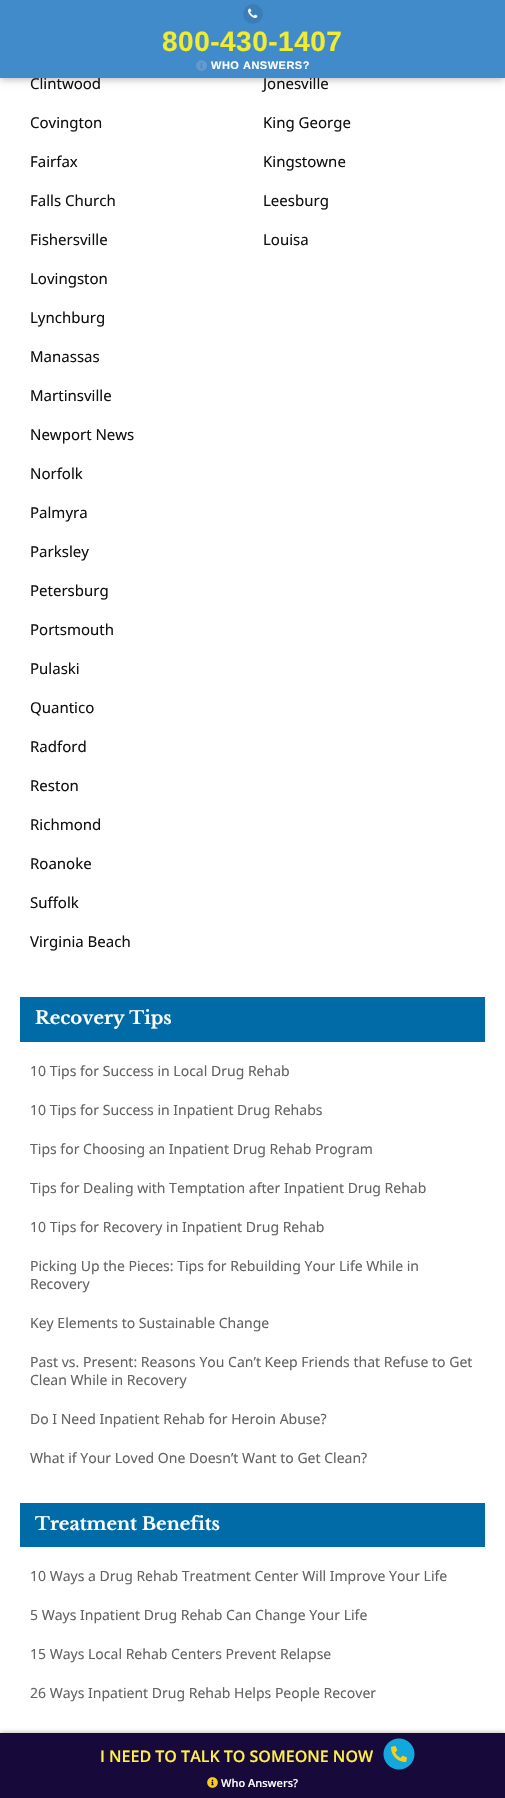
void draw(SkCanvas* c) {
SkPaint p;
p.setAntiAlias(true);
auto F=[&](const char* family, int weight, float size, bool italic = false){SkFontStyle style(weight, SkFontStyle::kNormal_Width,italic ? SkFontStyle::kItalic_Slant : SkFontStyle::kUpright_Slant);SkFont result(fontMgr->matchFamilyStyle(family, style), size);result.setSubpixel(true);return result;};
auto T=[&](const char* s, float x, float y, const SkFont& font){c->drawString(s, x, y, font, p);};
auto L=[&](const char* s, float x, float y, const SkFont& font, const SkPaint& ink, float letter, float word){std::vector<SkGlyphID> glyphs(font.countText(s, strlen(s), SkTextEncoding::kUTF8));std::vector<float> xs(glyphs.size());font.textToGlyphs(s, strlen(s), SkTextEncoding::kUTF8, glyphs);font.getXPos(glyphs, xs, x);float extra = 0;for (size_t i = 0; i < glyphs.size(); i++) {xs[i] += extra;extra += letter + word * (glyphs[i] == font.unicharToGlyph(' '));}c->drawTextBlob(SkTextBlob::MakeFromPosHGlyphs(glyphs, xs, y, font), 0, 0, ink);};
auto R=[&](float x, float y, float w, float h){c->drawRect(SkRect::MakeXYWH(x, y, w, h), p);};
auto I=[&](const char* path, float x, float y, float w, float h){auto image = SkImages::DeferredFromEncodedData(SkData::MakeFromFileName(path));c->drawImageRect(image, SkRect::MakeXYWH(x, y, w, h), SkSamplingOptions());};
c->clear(0xffffffff);
p.setColor(0x4d000000);
p.setMaskFilter(SkMaskFilter::MakeBlur(kNormal_SkBlurStyle, 4));
c->drawRect(SkRect::MakeXYWH(0,1,505,78),p);
p.setMaskFilter(nullptr);
auto f1 = F("Noto Sans",400,15);
p.setColor(0xff111111);
T("Clintwood",30,89,f1);
T("Jonesville",263,89,f1);
p.setColor(0xff428bca);
R(0,0,505,78);
p.setColor(0xff3b7db6);
c->drawCircle(253,14,10,p);
I("1.png",248,8,10,10);
auto f2 = F("Liberation Sans",700,28);
p.setColor(0xffefec32);
L("800-430-1407",162,51,f2,p,.5,0);
I("2.png",196,60,11,11);
auto f3 = F("Liberation Sans",700,11);
p.setColor(0xffffffff);
L("WHO ANSWERS?",211,69,f3,p,.5,0);
p.setColor(0xff111111);
T("Covington",30,128,f1);
T("Fairfax",30,167,f1);
T("Falls Church",30,206,f1);
T("Fishersville",30,245,f1);
T("King George",263,128,f1);
T("Kingstowne",263,167,f1);
T("Leesburg",263,206,f1);
T("Louisa",263,245,f1);
T("Lovingston",30,284,f1);
T("Lynchburg",30,323,f1);
T("Manassas",30,362,f1);
T("Martinsville",30,401,f1);
T("Newport News",30,440,f1);
T("Norfolk",30,479,f1);
T("Palmyra",30,518,f1);
T("Parksley",30,557,f1);
T("Petersburg",30,596,f1);
T("Portsmouth",30,635,f1);
T("Pulaski",30,674,f1);
T("Quantico",30,713,f1);
T("Radford",30,752,f1);
T("Reston",30,791,f1);
T("Richmond",30,830,f1);
T("Roanoke",30,869,f1);
T("Suffolk",30,908,f1);
T("Virginia Beach",30,947,f1);
p.setColor(0xff006ba6);
R(20,997,465,45);
auto f4 = F("Libre Baskerville",700,18);
p.setColor(0xffffffff);
T("Recovery Tips",35,1024,f4);
auto f5 = F("Noto Sans",400,14);
p.setColor(0xff636363);
T("10 Tips for Success in Local Drug Rehab",30,1076,f5);
T("10 Tips for Success in Inpatient Drug Rehabs",30,1115,f5);
T("Tips for Choosing an Inpatient Drug Rehab Program",30,1154,f5);
T("Tips for Dealing with Temptation after Inpatient Drug Rehab",30,1193,f5);
T("10 Tips for Recovery in Inpatient Drug Rehab",30,1232,f5);
T("Picking Up the Pieces: Tips for Rebuilding Your Life While in",30,1271,f5);
T("Recovery",30,1289,f5);
T("Key Elements to Sustainable Change",30,1328,f5);
T("Past vs. Present: Reasons You Can’t Keep Friends that Refuse to Get",30,1367,f5);
T("Clean While in Recovery",30,1385,f5);
T("Do I Need Inpatient Rehab for Heroin Abuse?",30,1424,f5);
T("What if Your Loved One Doesn’t Want to Get Clean?",30,1463,f5);
p.setColor(0xff006ba6);
R(20,1503,465,44);
p.setColor(0xffffffff);
T("Treatment Benefits",35,1530,f4);
p.setColor(0xff636363);
T("10 Ways a Drug Rehab Treatment Center Will Improve Your Life",30,1581,f5);
T("5 Ways Inpatient Drug Rehab Can Change Your Life",30,1620,f5);
T("15 Ways Local Rehab Centers Prevent Relapse",30,1659,f5);
T("26 Ways Inpatient Drug Rehab Helps People Recover",30,1698,f5);
p.setColor(0x663b2727);
p.setMaskFilter(SkMaskFilter::MakeBlur(kNormal_SkBlurStyle, 2.5));
c->drawRect(SkRect::MakeXYWH(0,1733,505,65),p);
p.setMaskFilter(nullptr);
p.setColor(0xff170939);
R(0,1733,505,65);
auto f6 = F("Open Sans",600,16);
p.setColor(0xfffff04b);
T("I NEED TO TALK TO SOMEONE NOW",100,1762,f6);
I("3.png",383,1738,32,32);
I("4.png",391,1746,16,16);
I("5.png",207,1777,11,11);
auto f7 = F("Open Sans",600,11);
p.setColor(0xffffffff);
T("Who Answers?",221,1787,f7);
}
